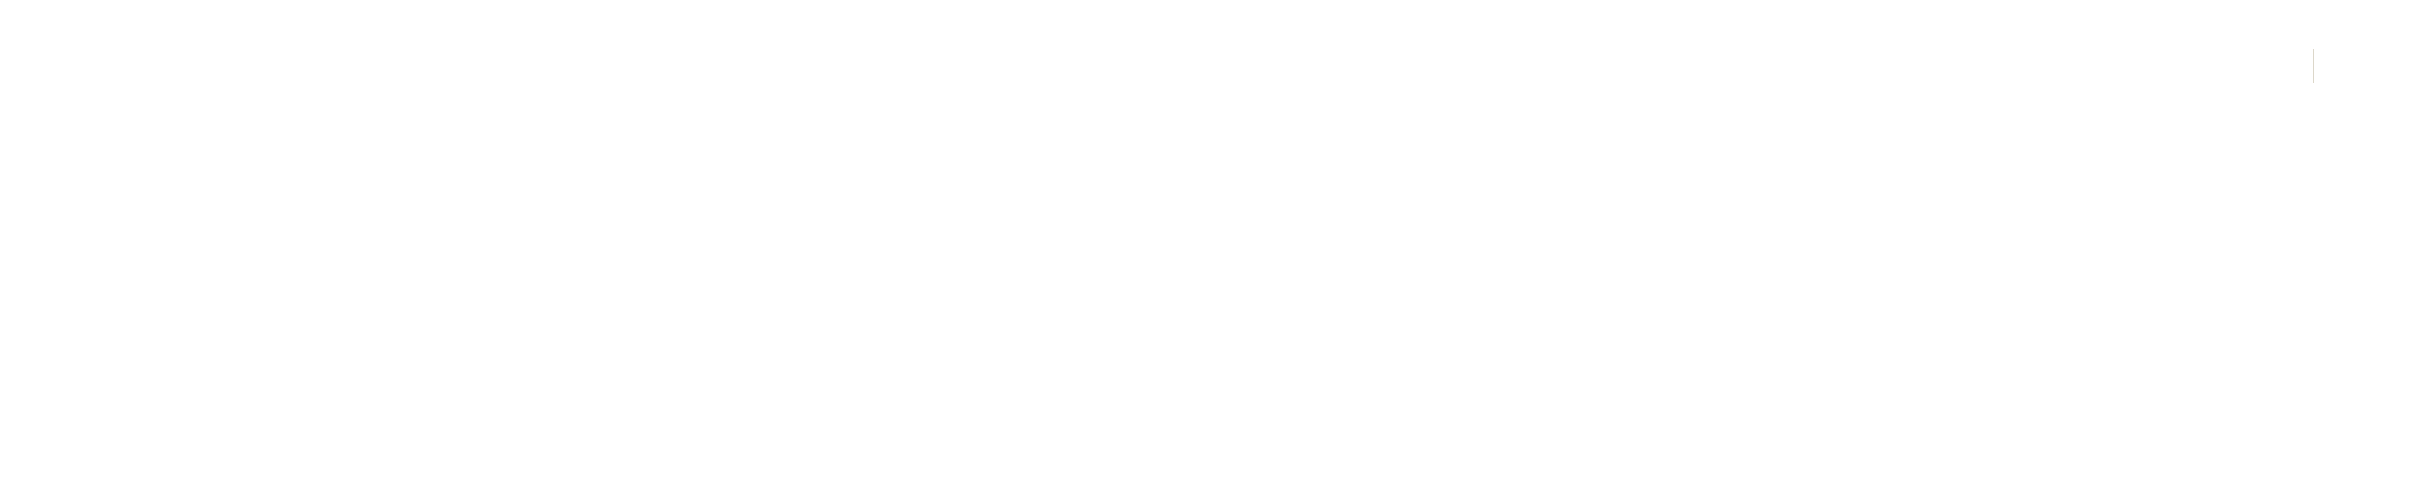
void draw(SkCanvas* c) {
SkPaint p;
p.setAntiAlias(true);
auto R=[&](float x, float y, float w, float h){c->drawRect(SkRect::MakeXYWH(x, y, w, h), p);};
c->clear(0xffffffff);
p.setColor(0xffdcd7ca);
R(2313,49,1,34);
}
